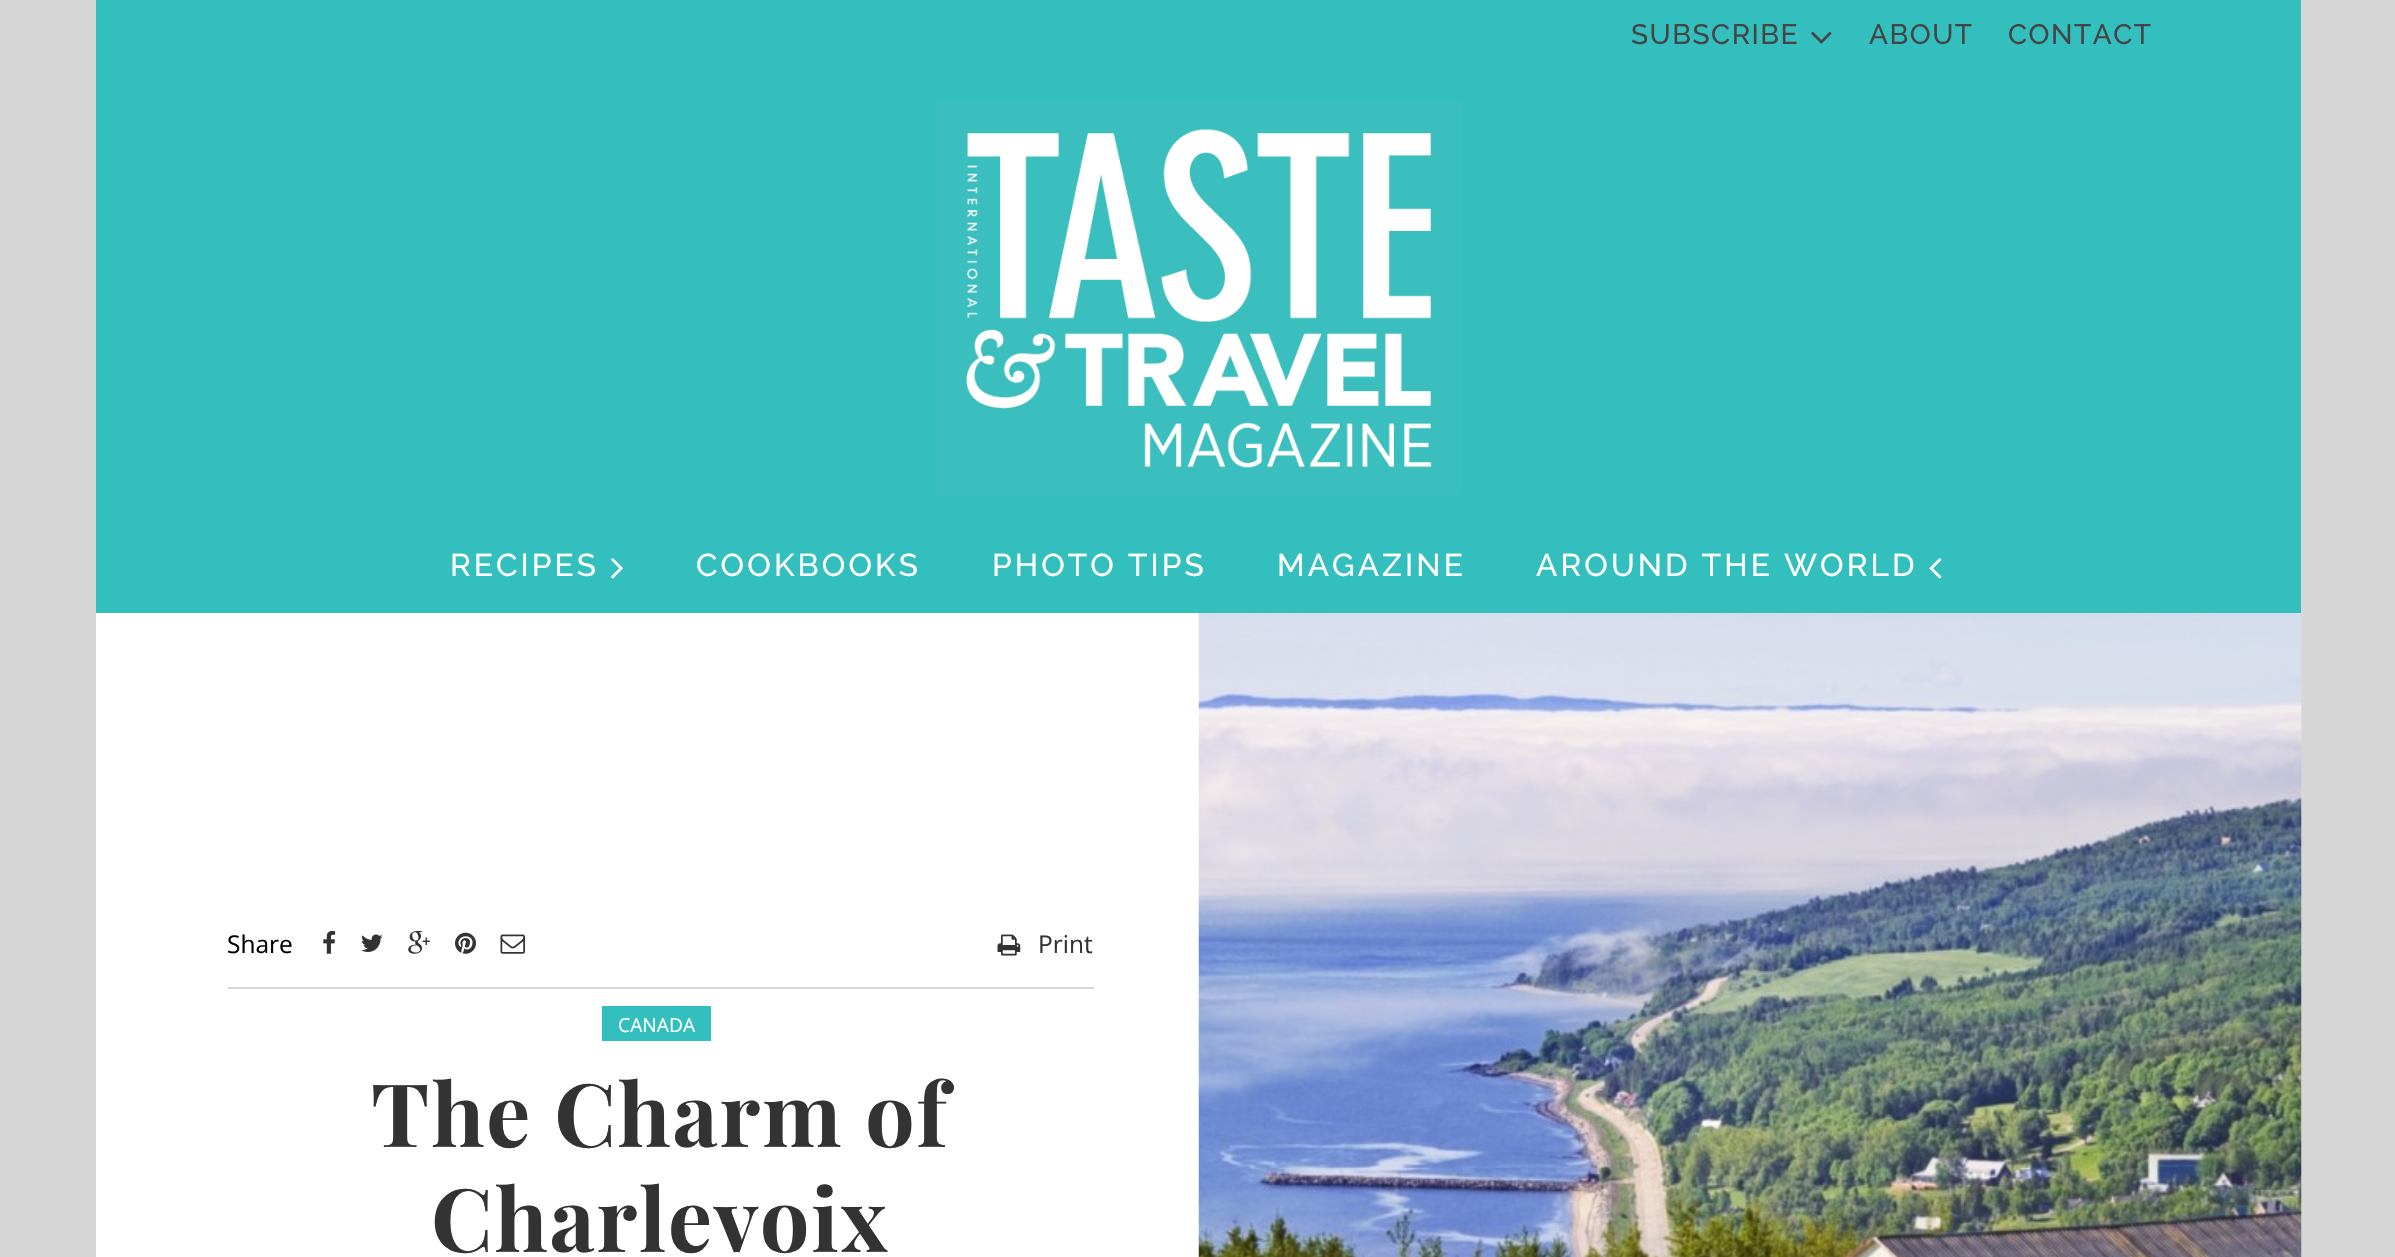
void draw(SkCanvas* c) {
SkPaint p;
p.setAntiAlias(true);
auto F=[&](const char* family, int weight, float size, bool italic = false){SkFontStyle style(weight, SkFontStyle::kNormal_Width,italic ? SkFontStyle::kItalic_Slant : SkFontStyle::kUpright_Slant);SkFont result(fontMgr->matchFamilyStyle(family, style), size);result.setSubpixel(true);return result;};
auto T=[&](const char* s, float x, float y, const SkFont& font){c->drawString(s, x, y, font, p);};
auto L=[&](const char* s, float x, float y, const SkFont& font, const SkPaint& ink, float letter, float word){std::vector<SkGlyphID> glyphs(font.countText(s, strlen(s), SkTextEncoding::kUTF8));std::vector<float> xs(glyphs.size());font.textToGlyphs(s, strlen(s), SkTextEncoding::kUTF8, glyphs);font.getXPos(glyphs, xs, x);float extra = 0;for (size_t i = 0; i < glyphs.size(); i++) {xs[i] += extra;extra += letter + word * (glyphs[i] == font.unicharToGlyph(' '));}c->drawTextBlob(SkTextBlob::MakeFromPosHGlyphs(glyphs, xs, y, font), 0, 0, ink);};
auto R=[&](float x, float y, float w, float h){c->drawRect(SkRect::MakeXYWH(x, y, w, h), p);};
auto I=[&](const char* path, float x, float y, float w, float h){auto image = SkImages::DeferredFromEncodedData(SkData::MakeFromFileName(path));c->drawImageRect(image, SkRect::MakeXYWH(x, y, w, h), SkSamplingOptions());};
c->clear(0xffd6d6d6);
p.setColor(0xffffffff);
R(96,613,1103,644);
I("11.png",1198,612,1104,645);
p.setColor(0xff32bfbe);
R(96,0,2205,613);
auto f1 = F("Raleway",100,28);
p.setColor(0xff454545);
L("SUBSCRIBE",1631,44,f1,p,1.5,0);
I("1.png",1811,31,21,13);
L("ABOUT",1869,44,f1,p,1.5,0);
L("CONTACT",2008,44,f1,p,1.5,0);
I("2.png",936,101,525,394);
auto f2 = F("Raleway",100,31.5);
p.setColor(0xffffffff);
L("RECIPES",450,576,f2,p,3.1,0);
I("3.png",611,558,12,21);
L("COOKBOOKS",696,576,f2,p,3.1,0);
L("PHOTO TIPS",992,576,f2,p,3.1,0);
L("MAGAZINE",1277,576,f2,p,3.1,0);
L("AROUND THE WORLD",1536,576,f2,p,3.1,0);
I("4.png",1929,558,13,21);
auto f3 = F("Open Sans",400,24.5);
p.setColor(0xff000000);
T("Share",227,953,f3);
I("5.png",323,931,13,23);
I("6.png",361,934,22,18);
I("7.png",408,931,22,23);
I("8.png",455,932,21,22);
I("9.png",500,934,25,20);
I("10.png",997,934,24,22);
p.setColor(0xff333333);
T("Print",1038,953,f3);
p.setColor(0xffd5d5d5);
R(228,987,866,2);
p.setColor(0xff32bfbe);
R(602,1006,109,35);
auto f4 = F("Open Sans",400,19.25);
p.setColor(0xffffffff);
T("CANADA",618,1032,f4);
auto f5 = F("Playfair Display",700,87.5);
p.setColor(0xff333333);
L("The Charm of",371,1147,f5,p,1.75,0);
L("Charlevoix",431,1252,f5,p,1.75,0);
}
